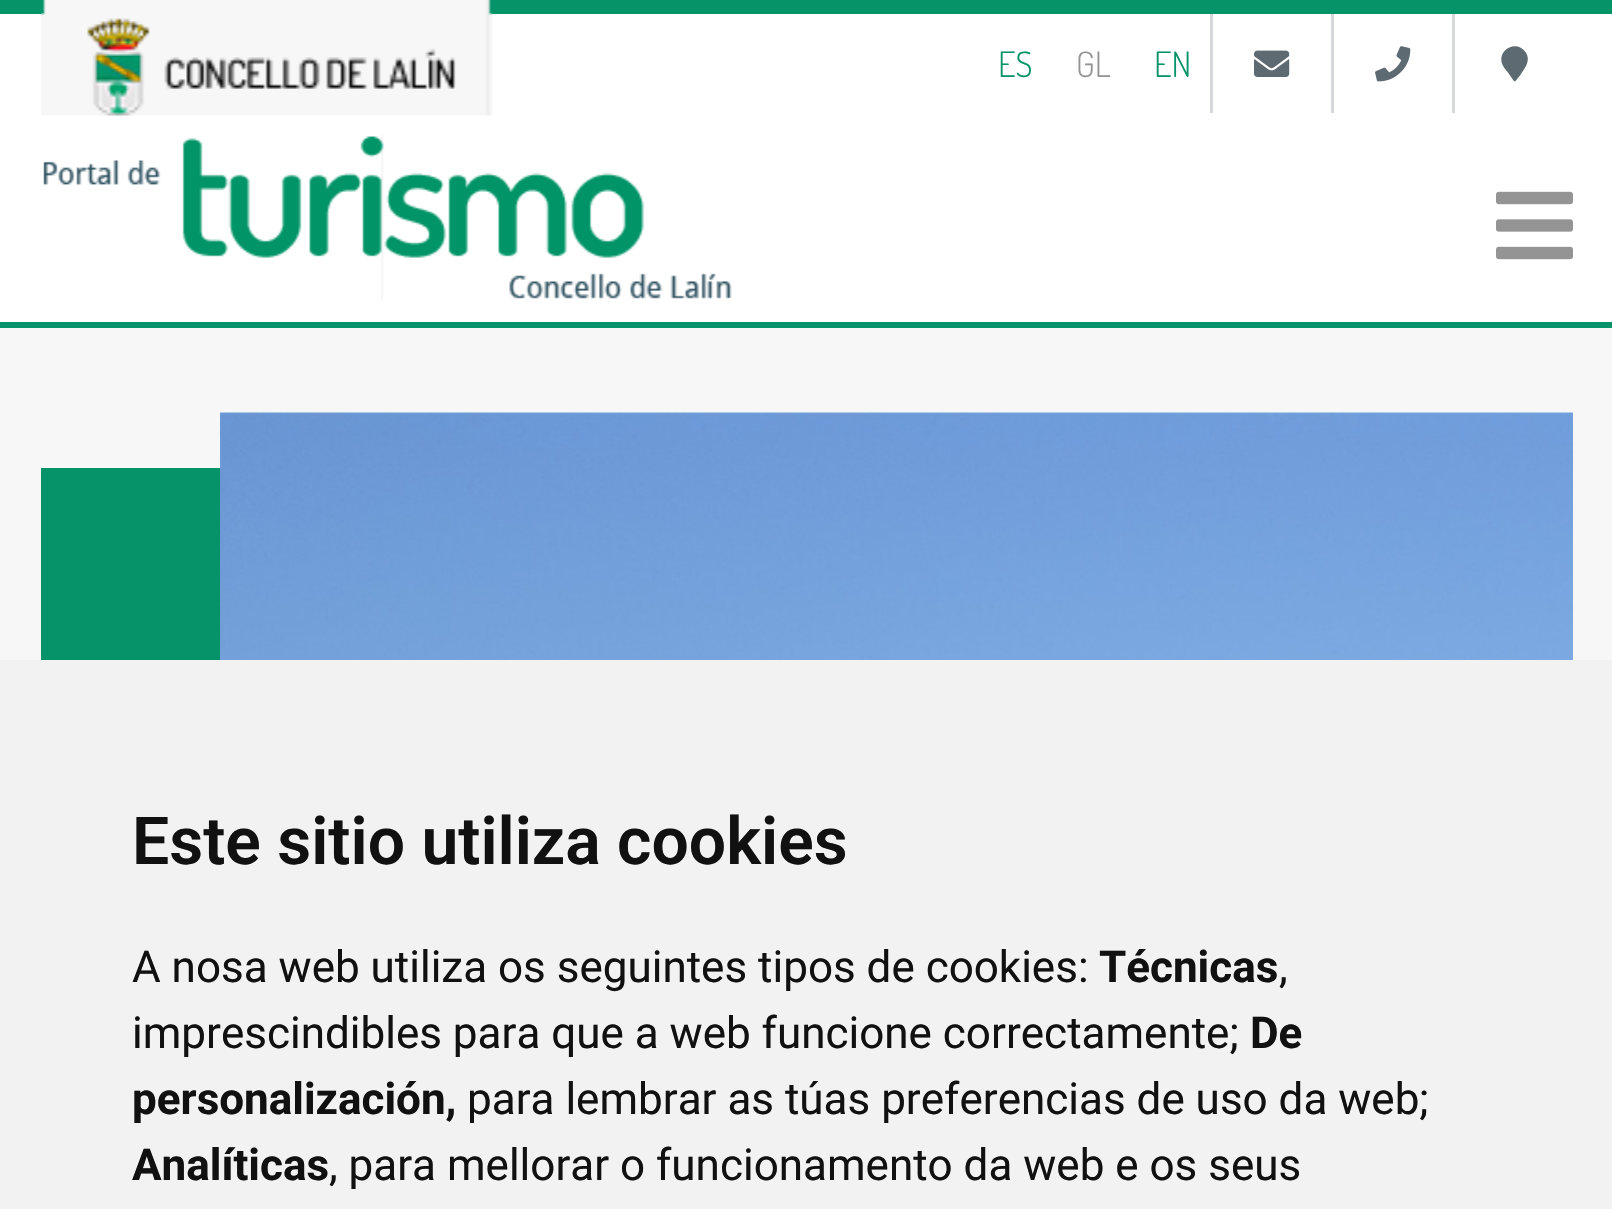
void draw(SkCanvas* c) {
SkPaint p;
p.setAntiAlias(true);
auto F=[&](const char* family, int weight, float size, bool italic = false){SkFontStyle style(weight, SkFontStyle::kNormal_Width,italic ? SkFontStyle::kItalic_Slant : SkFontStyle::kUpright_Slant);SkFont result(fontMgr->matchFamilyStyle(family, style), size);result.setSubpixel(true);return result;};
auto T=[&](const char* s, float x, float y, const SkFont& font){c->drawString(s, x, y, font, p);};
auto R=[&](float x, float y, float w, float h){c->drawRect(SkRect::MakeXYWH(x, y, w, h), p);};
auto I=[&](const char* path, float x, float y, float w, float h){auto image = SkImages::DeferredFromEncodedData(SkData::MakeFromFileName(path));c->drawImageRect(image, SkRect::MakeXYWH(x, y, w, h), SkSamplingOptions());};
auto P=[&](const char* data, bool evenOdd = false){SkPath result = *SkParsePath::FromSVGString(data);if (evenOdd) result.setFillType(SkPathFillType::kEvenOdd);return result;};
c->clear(0xfff7f7f7);
p.setColor(0xffffffff);
R(0,14,1612,308);
p.setColor(0xff069369);
R(0,322,1612,6);
p.setColor(0xff059368);
R(0,0,1612,14);
I("1.png",41,0,452,116);
auto f1 = F("Dosis",300,35);
p.setColor(0xff069369);
T("ES",998,77,f1);
p.setColor(0xff949494);
T("GL",1076,77,f1);
p.setColor(0xff069369);
T("EN",1154,77,f1);
p.setColor(0xffd5d7da);
R(1210,14,3,99);
I("2.png",1254,50,36,27);
R(1331,14,3,99);
I("3.png",1375,46,36,36);
R(1452,14,3,99);
p.setColor(0xff5e6a71);
c->drawPath(P("M1513.5 80.5l-5.5-8c-2.5-3-5.5-6.5-6.5-10.5c-2.5-14 16-22 24-10c6 9-1 16.5-5.5 23.5l-4.5 5.5c-.5 .5-1.5 .5-2-.5z"),p);
I("4.png",43,135,689,165);
I("5.png",1496,191,77,69);
p.setColor(0xff069369);
R(41,468,181,192);
I("6.png",220,412,1353,248);
p.setColor(0xfff2f2f2);
R(0,660,1612,549);
auto f2 = F("Roboto",600,66);
p.setColor(0xff111111);
T("Este sitio utiliza cookies",132,864,f2);
auto f3 = F("Roboto",400,44);
T("A nosa web utiliza os seguintes tipos de cookies:",132,982,f3);
auto f4 = F("Roboto",700,44);
T("Técnicas",1099,982,f4);
T(",",1279,982,f3);
T("imprescindibles para que a web funcione correctamente;",132,1048,f3);
T("De",1250,1048,f4);
T("personalización,",132,1114,f4);
T("para lembrar as túas preferencias de uso da web;",467,1114,f3);
T("Analíticas",132,1180,f4);
T(", para mellorar o funcionamento da web e os seus",329,1180,f3);
}
